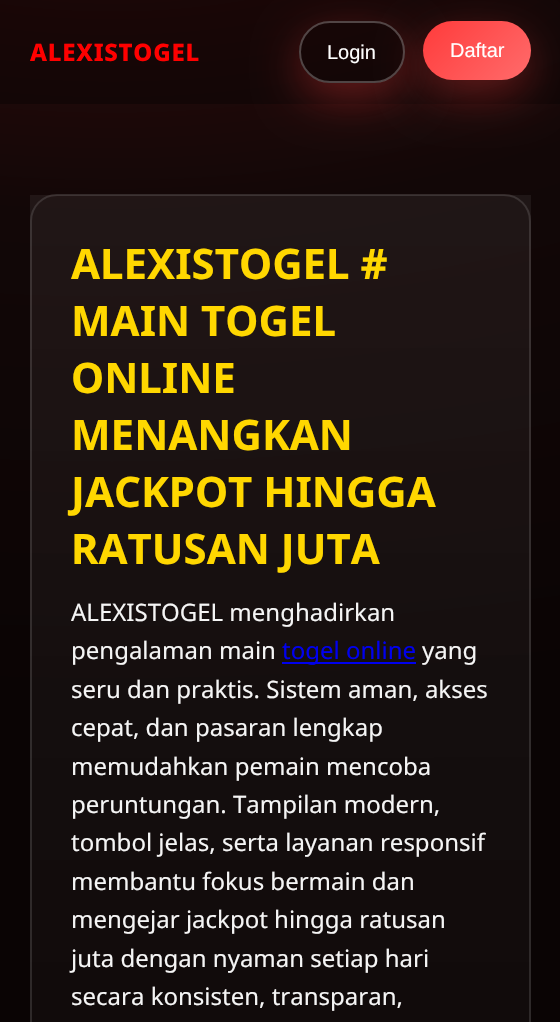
void draw(SkCanvas* c) {
SkPaint p;
p.setAntiAlias(true);
auto F=[&](const char* family, int weight, float size, bool italic = false){SkFontStyle style(weight, SkFontStyle::kNormal_Width,italic ? SkFontStyle::kItalic_Slant : SkFontStyle::kUpright_Slant);SkFont result(fontMgr->matchFamilyStyle(family, style), size);result.setSubpixel(true);return result;};
auto T=[&](const char* s, float x, float y, const SkFont& font){c->drawString(s, x, y, font, p);};
auto L=[&](const char* s, float x, float y, const SkFont& font, const SkPaint& ink, float letter, float word){std::vector<SkGlyphID> glyphs(font.countText(s, strlen(s), SkTextEncoding::kUTF8));std::vector<float> xs(glyphs.size());font.textToGlyphs(s, strlen(s), SkTextEncoding::kUTF8, glyphs);font.getXPos(glyphs, xs, x);float extra = 0;for (size_t i = 0; i < glyphs.size(); i++) {xs[i] += extra;extra += letter + word * (glyphs[i] == font.unicharToGlyph(' '));}c->drawTextBlob(SkTextBlob::MakeFromPosHGlyphs(glyphs, xs, y, font), 0, 0, ink);};
auto R=[&](float x, float y, float w, float h){c->drawRect(SkRect::MakeXYWH(x, y, w, h), p);};
auto Q=[&](float x, float y, float w, float h, float radius){c->drawRoundRect(SkRect::MakeXYWH(x, y, w, h), radius, radius, p);};
auto P=[&](const char* data, bool evenOdd = false){SkPath result = *SkParsePath::FromSVGString(data);if (evenOdd) result.setFillType(SkPathFillType::kEvenOdd);return result;};
c->clear(0xffffffff);
{
const SkColor colors[] = {0xff3a0d0d,0xff120707,0xff0a0404};
const float stops[] = {0,.45,1};
SkMatrix m = SkMatrix::Translate(112,-191).preScale(1800,900);
p.setShader(SkGradientShader::MakeRadial({0, 0}, 1, colors, stops, 3, SkTileMode::kClamp, 0, &m));
p.setAlpha(255);
}
R(0,104,560,918);
{
const SkColor colors[] = {0xff260808,0xff0c0505,0xff070303};
const float stops[] = {0,.45,1};
SkMatrix m = SkMatrix::Translate(112,-191).preScale(1800,900);
p.setShader(SkGradientShader::MakeRadial({0, 0}, 1, colors, stops, 3, SkTileMode::kClamp, 0, &m));
p.setAlpha(255);
}
R(0,0,560,104);
auto f1 = F("Noto Sans",800,24);
p.setShader(nullptr);
p.setColor(0xffff0000);
L("ALEXISTOGEL",30,61,f1,p,.75,0);
c->save();
c->clipPath(P("M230 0h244v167h-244zm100 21h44c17 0 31 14 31 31c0 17-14 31-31 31h-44c-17 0-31-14-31-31c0-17 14-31 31-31z",true),true);
p.setColor(0x59ff3b3b);
p.setMaskFilter(SkMaskFilter::MakeBlur(kNormal_SkBlurStyle, 22.5));
c->drawRoundRect(SkRect::MakeXYWH(299,36,106,62),31,31,p);
p.setMaskFilter(nullptr);
c->restore();
p.setStroke(true);
p.setStrokeWidth(2);
p.setColor(0x40ffffff);
c->drawRoundRect(SkRect::MakeXYWH(300,22,104,60),30,30,p);
auto f2 = F("Liberation Sans",400,20);
p.setStroke(false);
p.setColor(0xffffffff);
T("Login",327,59,f2);
p.setColor(0x59ff3b3b);
p.setMaskFilter(SkMaskFilter::MakeBlur(kNormal_SkBlurStyle, 22.5));
c->drawRoundRect(SkRect::MakeXYWH(423,36,108,59),29.5,29.5,p);
p.setMaskFilter(nullptr);
{
const SkColor colors[] = {0xffff3b3b,0xffff6b6b};
const float stops[] = {0,1};
const SkPoint ends[] = {{435,9}, {519,92}};
p.setShader(SkGradientShader::MakeLinear(ends, colors, stops, 2, SkTileMode::kClamp));
p.setAlpha(255);
}
Q(423,21,108,59,29.5);
p.setShader(nullptr);
p.setColor(0xffffffff);
T("Daftar",450,57,f2);
c->save();
c->clipPath(P("M57 194h447c15 0 27 12 27 27v972c0 15-12 27-27 27h-447c-15 0-27-12-27-27v-972c0-15 12-27 27-27z"),true);
{
const SkColor colors[] = {0xff211616,0xff180c0c};
const float stops[] = {0,1};
const SkPoint ends[] = {{280,-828}, {281,195}};
p.setShader(SkGradientShader::MakeLinear(ends, colors, stops, 2, SkTileMode::kClamp));
p.setAlpha(255);
}
R(50,194,461,1);
c->restore();
{
const SkColor colors[] = {0x0fffffff,0x05ffffff};
const float stops[] = {0,1};
const SkPoint ends[] = {{280,195}, {281,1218}};
p.setShader(SkGradientShader::MakeLinear(ends, colors, stops, 2, SkTileMode::kClamp));
p.setAlpha(255);
}
R(30,195,501,827);
p.setStroke(true);
p.setShader(nullptr);
p.setColor(0x1fffffff);
c->drawRoundRect(SkRect::MakeXYWH(31,195,499,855),26,26,p);
auto f3 = F("Noto Sans",700,42);
p.setStroke(false);
p.setColor(0xffffd700);
T("ALEXISTOGEL #",71,279,f3);
T("MAIN TOGEL",71,336,f3);
T("ONLINE",71,393,f3);
T("MENANGKAN",71,450,f3);
T("JACKPOT HINGGA",71,507,f3);
T("RATUSAN JUTA",71,564,f3);
auto f4 = F("Noto Sans",400,24);
p.setColor(0xfff5f5f5);
T("ALEXISTOGEL menghadirkan",71,621,f4);
T("pengalaman main",71,659,f4);
p.setColor(0xff0000ee);
R(282,662,134,2);
T("togel online",282,659,f4);
p.setColor(0xfff5f5f5);
T("yang",422,659,f4);
T("seru dan praktis. Sistem aman, akses",71,698,f4);
T("cepat, dan pasaran lengkap",71,736,f4);
T("memudahkan pemain mencoba",71,775,f4);
T("peruntungan. Tampilan modern,",71,813,f4);
T("tombol jelas, serta layanan responsif",71,851,f4);
T("membantu fokus bermain dan",71,890,f4);
T("mengejar jackpot hingga ratusan",71,928,f4);
T("juta dengan nyaman setiap hari",71,967,f4);
T("secara konsisten, transparan,",71,1005,f4);
}
